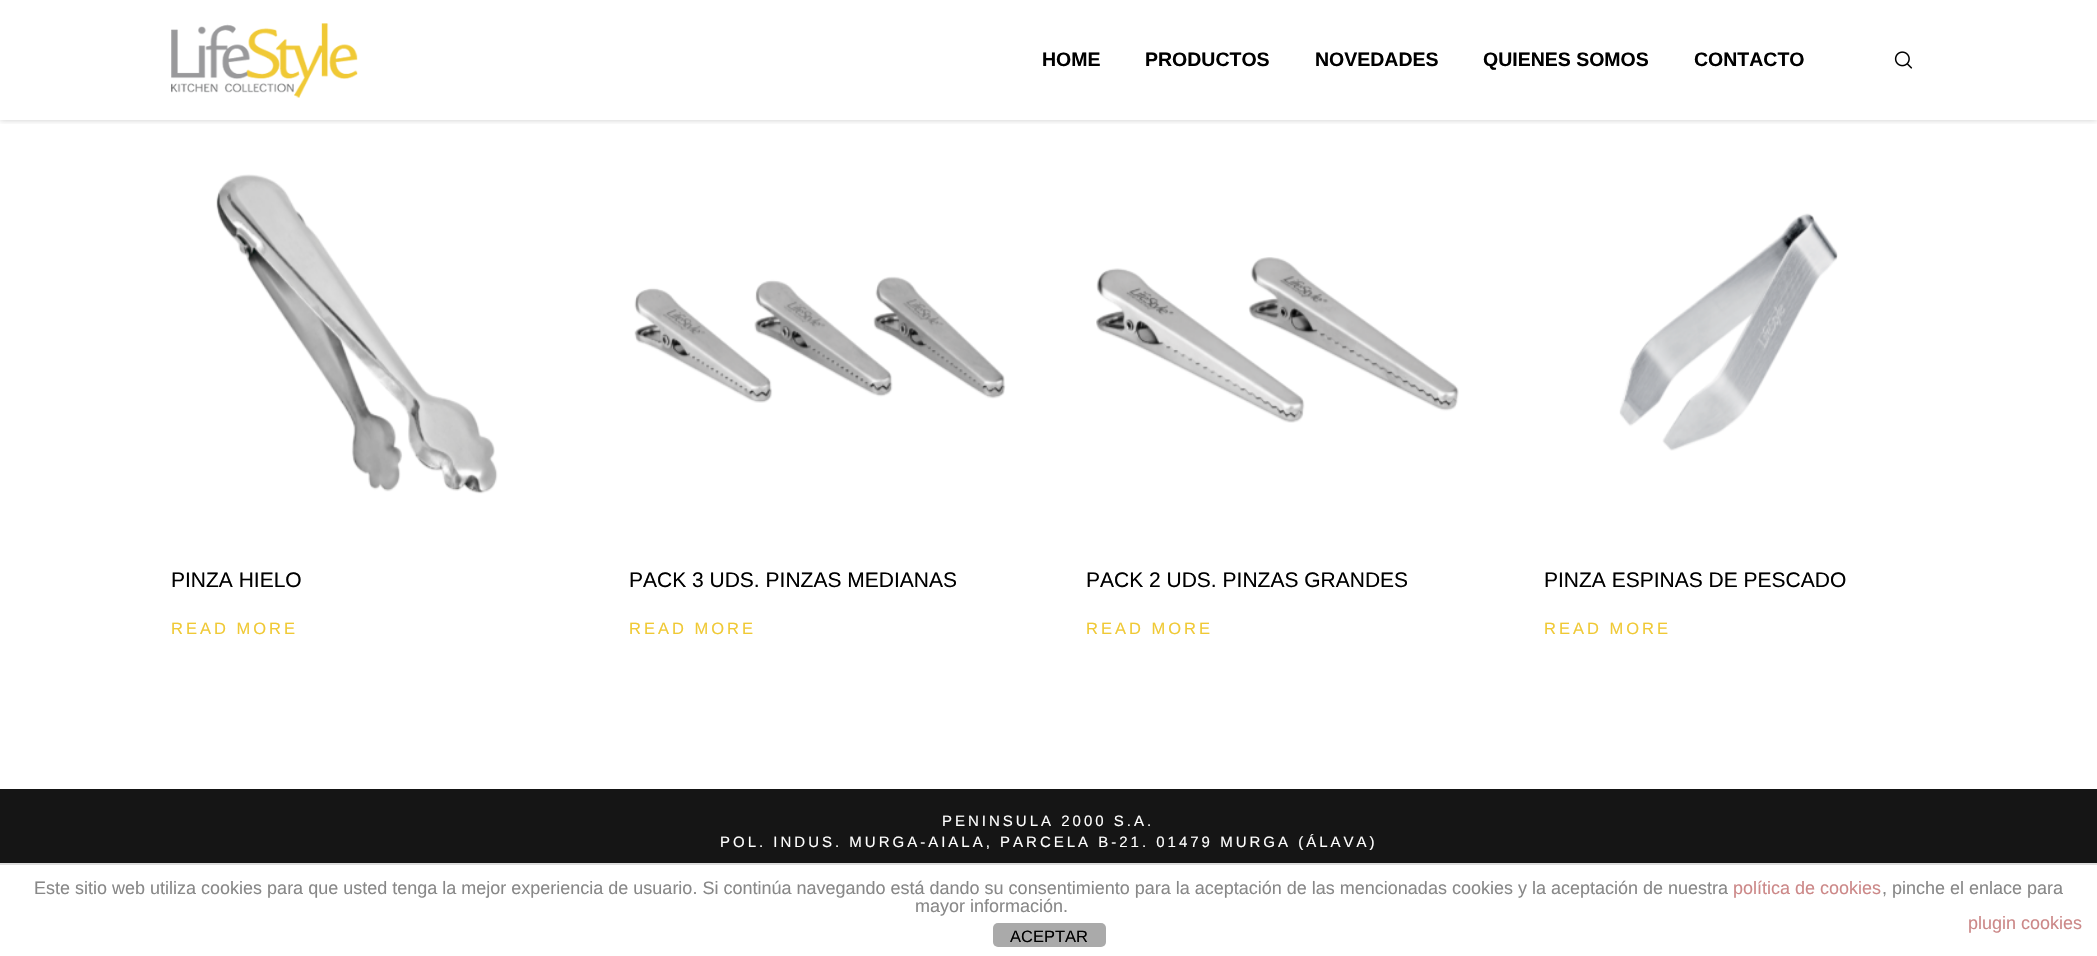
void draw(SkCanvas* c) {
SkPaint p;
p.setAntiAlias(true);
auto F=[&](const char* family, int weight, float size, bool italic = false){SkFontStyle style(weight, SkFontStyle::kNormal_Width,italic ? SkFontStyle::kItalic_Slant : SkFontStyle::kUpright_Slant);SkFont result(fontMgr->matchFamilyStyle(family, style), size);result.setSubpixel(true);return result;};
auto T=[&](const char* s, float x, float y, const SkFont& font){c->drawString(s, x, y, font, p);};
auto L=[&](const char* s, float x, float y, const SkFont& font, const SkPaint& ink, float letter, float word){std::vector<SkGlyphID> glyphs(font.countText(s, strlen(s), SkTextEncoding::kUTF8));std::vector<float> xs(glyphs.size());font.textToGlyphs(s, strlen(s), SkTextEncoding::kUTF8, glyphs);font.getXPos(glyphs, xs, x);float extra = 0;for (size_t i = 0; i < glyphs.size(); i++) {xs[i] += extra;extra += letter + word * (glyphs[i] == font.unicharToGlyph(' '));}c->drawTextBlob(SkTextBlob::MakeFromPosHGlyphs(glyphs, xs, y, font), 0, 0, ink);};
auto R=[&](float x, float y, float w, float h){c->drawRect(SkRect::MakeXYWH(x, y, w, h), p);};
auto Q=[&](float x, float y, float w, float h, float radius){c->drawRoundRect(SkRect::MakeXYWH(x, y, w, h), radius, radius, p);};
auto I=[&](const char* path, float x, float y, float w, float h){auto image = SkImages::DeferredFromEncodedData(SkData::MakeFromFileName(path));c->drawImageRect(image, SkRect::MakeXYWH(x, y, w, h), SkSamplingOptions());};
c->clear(0xffffffff);
c->save();
c->clipRect(SkRect::MakeXYWH(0,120,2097,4));
p.setColor(0x33000000);
p.setMaskFilter(SkMaskFilter::MakeBlur(kNormal_SkBlurStyle, 3));
c->drawRect(SkRect::MakeXYWH(0,0,2097,120),p);
p.setMaskFilter(nullptr);
c->restore();
I("1.png",171,23,187,75);
auto f1 = F("Liberation Sans",700,19.5);
p.setColor(0xff000000);
T("HOME",1042,66,f1);
T("PRODUCTOS",1145,66,f1);
T("NOVEDADES",1315,66,f1);
T("QUIENES SOMOS",1483,66,f1);
T("CONTACTO",1694,66,f1);
I("2.png",1894,51,19,18);
I("3.png",216,174,282,320);
auto f2 = F("Liberation Sans",400,21);
T("PINZA HIELO",171,587,f2);
auto f3 = F("Liberation Sans",400,16.5);
p.setColor(0xfff0c935);
L("READ MORE",171,634,f3,p,3,0);
I("4.png",634,276,372,127);
p.setColor(0xff000000);
T("PACK 3 UDS. PINZAS MEDIANAS",629,587,f2);
p.setColor(0xfff0c935);
L("READ MORE",629,634,f3,p,3,0);
I("5.png",1096,257,363,166);
p.setColor(0xff000000);
T("PACK 2 UDS. PINZAS GRANDES",1086,587,f2);
p.setColor(0xfff0c935);
L("READ MORE",1086,634,f3,p,3,0);
I("6.png",1619,213,219,238);
p.setColor(0xff000000);
T("PINZA ESPINAS DE PESCADO",1544,587,f2);
p.setColor(0xfff0c935);
L("READ MORE",1544,634,f3,p,3,0);
p.setColor(0xff151515);
R(0,789,2097,74);
auto f4 = F("Liberation Sans",400,15);
p.setColor(0xffffffff);
L("PENINSULA 2000 S.A.",942,826,f4,p,3,0);
L("POL. INDUS. MURGA-AIALA, PARCELA B-21. 01479 MURGA (ÁLAVA)",720,847,f4,p,3,0);
p.setColor(0xffdddddd);
R(0,863,2097,2);
auto f5 = F("Liberation Sans",400,18);
p.setColor(0xff888888);
T("Este sitio web utiliza cookies para que usted tenga la mejor experiencia de usuario. Si continúa navegando está dando su consentimiento para la aceptación de las mencionadas cookies y la aceptación de nuestra",34,894,f5);
p.setColor(0xffcc8888);
T("política de cookies",1733,894,f5);
p.setColor(0xff888888);
T(", pinche el enlace para",1882,894,f5);
T("mayor información.",915,912,f5);
p.setColor(0xffcc8888);
T("plugin cookies",1968,929,f5);
p.setColor(0xffaaaaaa);
Q(993,923,113,24,5);
p.setColor(0xff000000);
T("ACEPTAR",1010,942,f3);
}
